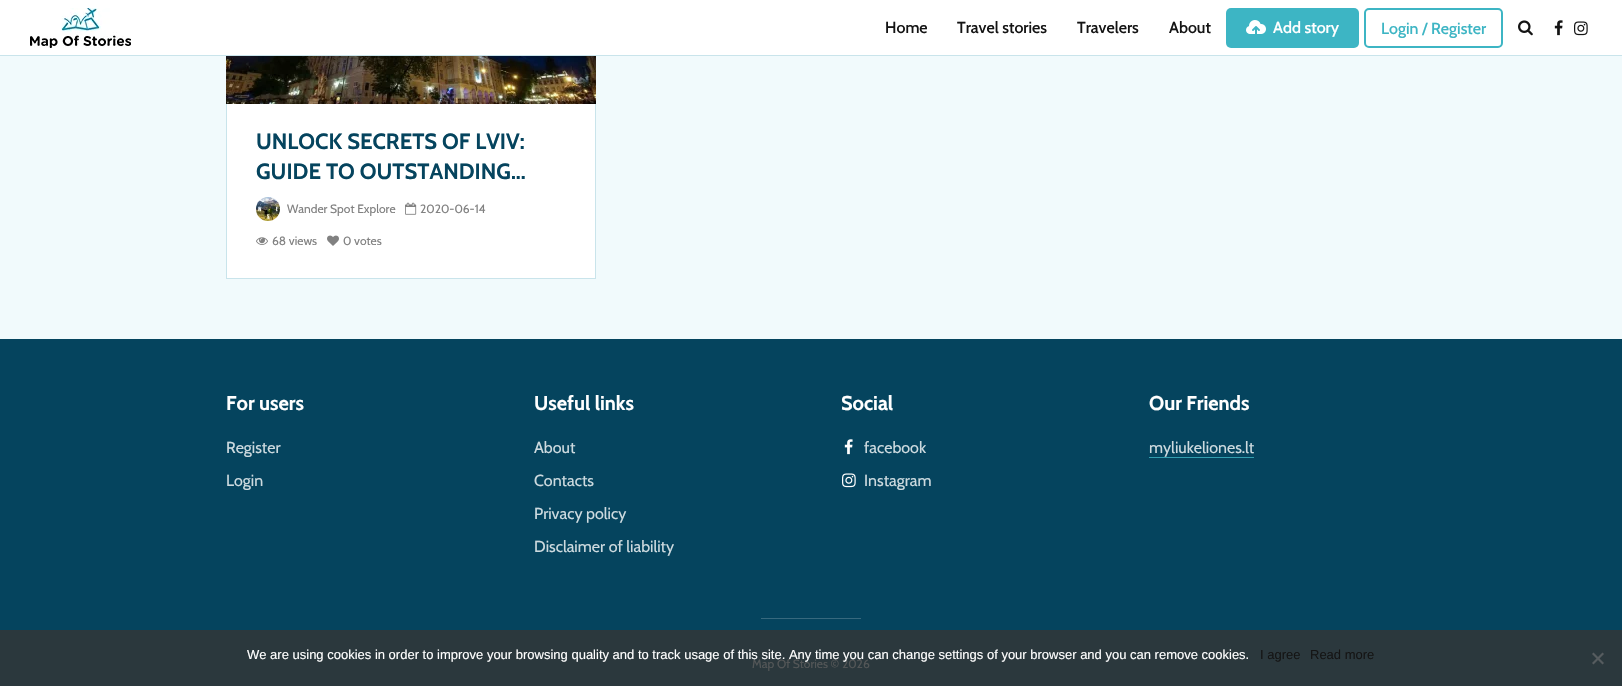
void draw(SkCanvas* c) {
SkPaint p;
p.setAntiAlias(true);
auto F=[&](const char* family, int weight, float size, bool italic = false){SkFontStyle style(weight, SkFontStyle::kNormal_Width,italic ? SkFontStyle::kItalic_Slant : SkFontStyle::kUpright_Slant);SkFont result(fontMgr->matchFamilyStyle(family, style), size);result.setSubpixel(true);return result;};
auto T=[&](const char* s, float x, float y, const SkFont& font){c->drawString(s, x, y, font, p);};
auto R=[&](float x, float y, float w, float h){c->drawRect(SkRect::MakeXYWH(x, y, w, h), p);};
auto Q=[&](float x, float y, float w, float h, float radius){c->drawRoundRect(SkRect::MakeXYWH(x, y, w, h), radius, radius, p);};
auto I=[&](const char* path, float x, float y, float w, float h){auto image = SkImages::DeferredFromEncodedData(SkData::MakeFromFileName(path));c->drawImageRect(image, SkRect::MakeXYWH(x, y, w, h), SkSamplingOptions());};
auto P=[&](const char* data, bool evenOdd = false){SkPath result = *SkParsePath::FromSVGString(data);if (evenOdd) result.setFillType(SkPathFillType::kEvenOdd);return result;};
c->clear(0xfff1fafc);
p.setColor(0xffffffff);
R(227,104,368,174);
p.setStroke(true);
p.setStrokeWidth(1);
p.setColor(0xffc9e4eb);
c->drawRect(SkRect::MakeXYWH(226.5,-.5,369,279),p);
p.setStroke(false);
p.setColor(0xffffffff);
R(0,0,1622,55);
p.setColor(0xffc9e4eb);
R(0,55,1622,1);
I("1.png",30,8,101,40);
auto f1 = F("Cabin",500,16);
p.setColor(0xff141414);
T("Home",885,33,f1);
T("Travel stories",957,33,f1);
T("Travelers",1077,33,f1);
T("About",1169,33,f1);
p.setColor(0xff3db5c4);
Q(1226,8,133,40,5);
I("2.png",1246,20,20,14);
p.setColor(0xffffffff);
T("Add story",1273,33,f1);
p.setStroke(true);
p.setStrokeWidth(2);
p.setColor(0xff3db5c4);
c->drawRoundRect(SkRect::MakeXYWH(1365,9,137,38),4,4,p);
p.setStroke(false);
T("Login / Register",1381,34,f1);
I("3.png",1518,20,15,16);
I("4.png",1554,20,9,16);
I("5.png",1574,21,14,15);
I("6.png",226,56,370,48);
auto f2 = F("Cabin",700,22);
p.setColor(0xff05445e);
T("UNLOCK SECRETS OF LVIV:",256,149,f2);
T("GUIDE TO OUTSTANDING...",256,179,f2);
I("7.png",256,197,24,24);
auto f3 = F("Cabin",400,12);
p.setColor(0xff818181);
T("Wander Spot Explore",287,213,f3);
I("8.png",405,202,12,13);
T("2020-06-14",420,213,f3);
I("9.png",256,237,12,8);
T("68 views",272,245,f3);
I("10.png",327,235,12,11);
T("0 votes",343,245,f3);
p.setColor(0xff05445e);
R(0,339,1622,291);
p.setColor(0xff2b383d);
R(0,630,1622,56);
auto f4 = F("Cabin",700,20);
p.setColor(0xffffffff);
T("For users",226,410,f4);
auto f5 = F("Cabin",400,16);
p.setColor(0xffcddadf);
T("Register",226,453,f5);
T("Login",226,486,f5);
p.setColor(0xffffffff);
T("Useful links",534,410,f4);
p.setColor(0xffcddadf);
T("About",534,453,f5);
T("Contacts",534,486,f5);
T("Privacy policy",534,519,f5);
T("Disclaimer of liability",534,552,f5);
p.setColor(0xffffffff);
T("Social",841,410,f4);
I("11.png",844,439,9,16);
p.setColor(0xffcddadf);
T("facebook",864,453,f5);
I("12.png",842,473,14,15);
T("Instagram",864,486,f5);
p.setColor(0xffffffff);
T("Our Friends",1149,410,f4);
p.setColor(0xffcddadf);
T("myliukeliones.lt",1149,453,f5);
p.setColor(0xff329eb0);
R(1149,457,105,1);
p.setColor(0xff37697e);
R(761,618,100,1);
p.setColor(0xff535657);
T("Map Of Stories © 2026",752,668,f3);
auto f6 = F("Liberation Sans",400,13);
p.setColor(0xffffffff);
T("We are using cookies in order to improve your browsing quality and to track usage of this site. Any time you can change settings of your browser and you can remove cookies.",247,659,f6);
p.setColor(0xff141414);
T("I agree",1260,659,f6);
T("Read more",1310,659,f6);
p.setColor(0xff565c5f);
c->drawPath(P("M1602.5 652.5l1.5 1.5l-10.5 10.5l-1.5-1.5z"),p);
c->drawPath(P("M1592 654l1.5-1.5l10.5 10.5l-1.5 1.5z"),p);
}
